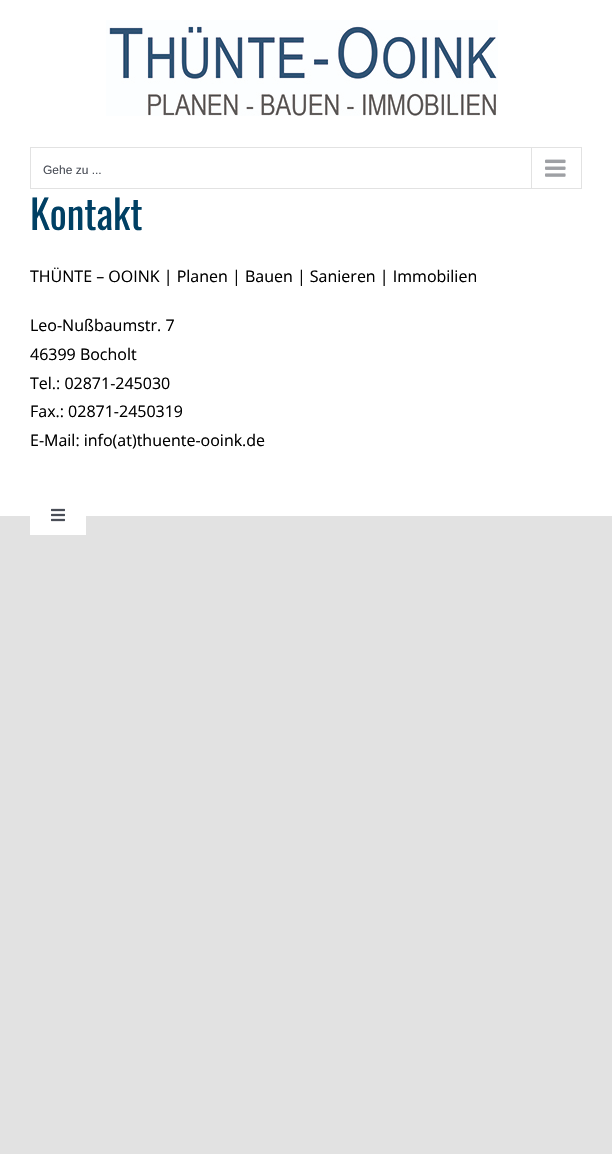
void draw(SkCanvas* c) {
SkPaint p;
p.setAntiAlias(true);
auto F=[&](const char* family, int weight, float size, bool italic = false){SkFontStyle style(weight, SkFontStyle::kNormal_Width,italic ? SkFontStyle::kItalic_Slant : SkFontStyle::kUpright_Slant);SkFont result(fontMgr->matchFamilyStyle(family, style), size);result.setSubpixel(true);return result;};
auto T=[&](const char* s, float x, float y, const SkFont& font){c->drawString(s, x, y, font, p);};
auto R=[&](float x, float y, float w, float h){c->drawRect(SkRect::MakeXYWH(x, y, w, h), p);};
auto I=[&](const char* path, float x, float y, float w, float h){auto image = SkImages::DeferredFromEncodedData(SkData::MakeFromFileName(path));c->drawImageRect(image, SkRect::MakeXYWH(x, y, w, h), SkSamplingOptions());};
c->clear(0xffe2e2e2);
p.setColor(0xffffffff);
R(0,0,612,516);
I("1.png",106,20,392,96);
p.setStroke(true);
p.setStrokeWidth(1);
p.setColor(0xffe2e2e2);
c->drawRect(SkRect::MakeXYWH(30.5,147.5,551,41),p);
auto f1 = F("Liberation Sans",400,12);
p.setStroke(false);
p.setColor(0xff4a4e57);
T("Gehe zu ...",43,174,f1);
p.setColor(0xffe2e2e2);
R(531,148,1,40);
I("2.png",545,159,21,18);
auto f2 = F("Oswald",400,40);
p.setColor(0xff004064);
T("Kontakt",30,230,f2);
auto f3 = F("Open Sans",400,16);
p.setColor(0xff000000);
T("THÜNTE – OOINK | Planen | Bauen | Sanieren | Immobilien",30,282,f3);
T("Leo-Nußbaumstr. 7",30,331,f3);
T("46399 Bocholt",30,360,f3);
T("Tel.: 02871-245030",30,389,f3);
T("Fax.: 02871-2450319",30,417,f3);
T("E-Mail: info(at)thuente-ooink.de",30,446,f3);
p.setColor(0xffffffff);
R(30,516,56,19);
I("3.png",51,508,14,14);
}
